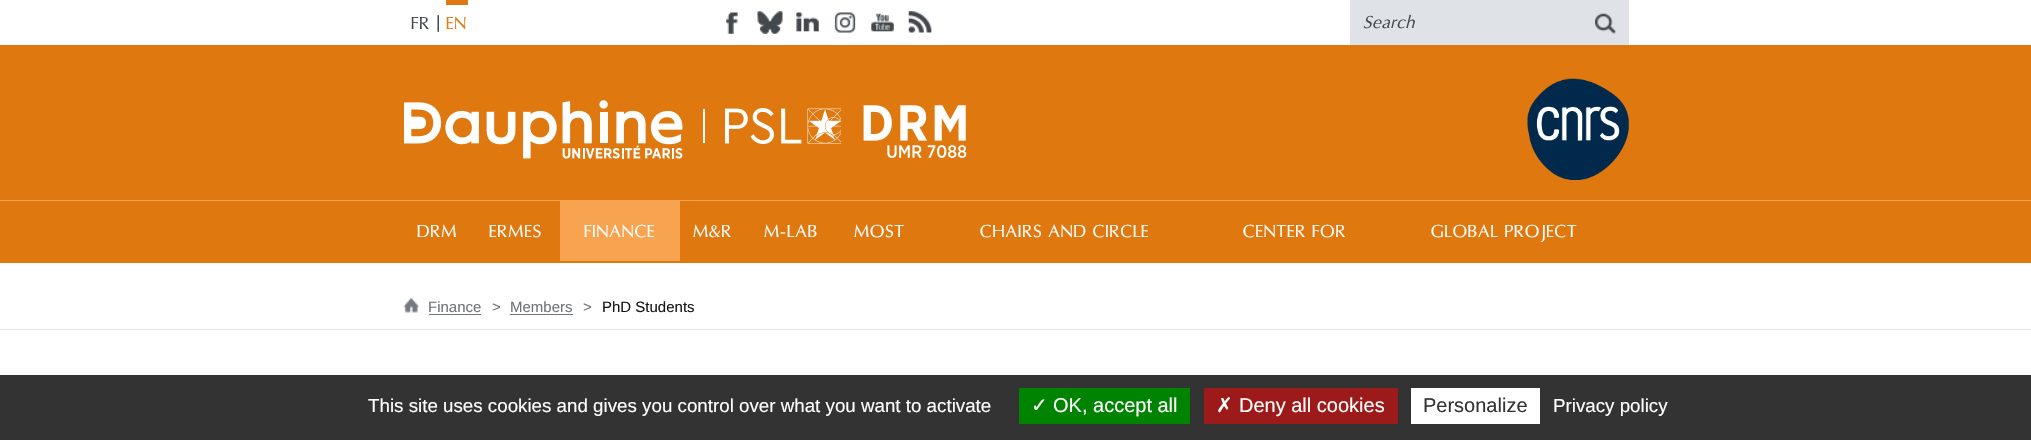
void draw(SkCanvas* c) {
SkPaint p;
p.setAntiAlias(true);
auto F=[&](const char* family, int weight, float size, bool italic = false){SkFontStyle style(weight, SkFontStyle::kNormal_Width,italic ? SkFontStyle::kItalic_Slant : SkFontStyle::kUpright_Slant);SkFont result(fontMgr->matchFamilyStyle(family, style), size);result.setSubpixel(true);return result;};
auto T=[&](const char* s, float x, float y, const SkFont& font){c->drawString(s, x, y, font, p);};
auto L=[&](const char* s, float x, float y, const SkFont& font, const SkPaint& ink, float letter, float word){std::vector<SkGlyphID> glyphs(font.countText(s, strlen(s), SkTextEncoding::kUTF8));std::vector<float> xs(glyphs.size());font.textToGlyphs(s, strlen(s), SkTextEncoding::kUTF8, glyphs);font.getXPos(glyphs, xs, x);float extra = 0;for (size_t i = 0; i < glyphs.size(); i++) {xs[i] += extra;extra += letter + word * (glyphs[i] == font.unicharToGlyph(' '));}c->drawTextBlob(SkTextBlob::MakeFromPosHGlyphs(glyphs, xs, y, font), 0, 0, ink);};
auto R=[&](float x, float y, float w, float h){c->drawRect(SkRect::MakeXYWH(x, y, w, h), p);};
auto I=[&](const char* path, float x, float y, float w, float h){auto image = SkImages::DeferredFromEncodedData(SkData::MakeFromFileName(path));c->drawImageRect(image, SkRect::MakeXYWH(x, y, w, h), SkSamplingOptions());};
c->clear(0xffffffff);
auto f1 = F("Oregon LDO",400,17.5);
p.setColor(0xff43484d);
L("FR",411,29,f1,p,1,0);
auto f2 = F("Liberation Sans",400,17.5);
T("|",436,28,f2);
p.setColor(0xffe07810);
R(446,0,22,5);
L("EN",446,29,f1,p,1,0);
I("1.png",726,12,12,22);
I("2.png",757,11,26,23);
I("3.png",796,12,23,20);
I("4.png",834,12,22,21);
I("5.png",871,13,23,19);
I("6.png",908,11,24,22);
p.setColor(0xffdfe2e6);
R(1350,0,279,45);
auto f3 = F("Oregon LDO",400,17.5,true);
p.setColor(0xff43484d);
L("Search",1363,28,f3,p,.75,0);
I("7.png",1595,13,22,21);
p.setColor(0xffe07810);
R(0,45,2031,218);
p.setColor(0xfff7a34f);
R(0,200,2031,1);
I("8.png",404,100,437,59);
I("9.png",863,105,104,53);
I("10.png",1527,78,102,102);
p.setColor(0xffffffff);
L("DRM",417,237,f1,p,1,0);
L("ERMES",489,237,f1,p,1,0);
p.setColor(0xfff7a34f);
R(560,201,120,60);
p.setColor(0xffffffff);
L("FINANCE",584,237,f1,p,1,0);
L("M&R",693,237,f1,p,1,0);
L("M-LAB",764,237,f1,p,1,0);
L("MOST",854,237,f1,p,1,0);
L("CHAIRS AND CIRCLE",980,237,f1,p,1,0);
L("CENTER FOR",1243,237,f1,p,1,0);
L("GLOBAL PROJECT",1431,237,f1,p,1,0);
p.setColor(0xffdfe2e6);
R(0,329,2031,1);
I("11.png",403,297,16,16);
auto f4 = F("Liberation Sans",400,15);
p.setColor(0xff70757a);
T("Finance",428,312,f4);
R(429,314,52,1);
T(">",492,312,f4);
T("Members",510,312,f4);
R(510,314,63,1);
T(">",583,312,f4);
p.setColor(0xff16181a);
T("PhD Students",602,312,f4);
p.setColor(0xff333333);
R(0,375,2031,65);
auto f5 = F("Liberation Sans",400,18.75);
p.setColor(0xffffffff);
T("This site uses cookies and gives you control over what you want to activate",368,412,f5);
p.setColor(0xff008300);
R(1019,388,171,36);
auto f6 = F("DejaVu Sans",400,20);
p.setColor(0xffffffff);
T("✓",1031,412,f6);
auto f7 = F("Liberation Sans",400,20);
T("OK, accept all",1053,412,f7);
p.setColor(0xff9c1a1a);
R(1204,388,194,36);
p.setColor(0xffffffff);
T("✗",1216,412,f6);
T("Deny all cookies",1239,412,f7);
R(1411,388,129,36);
p.setColor(0xff333333);
T("Personalize",1423,412,f7);
p.setColor(0xffffffff);
T("Privacy policy",1553,412,f5);
}
